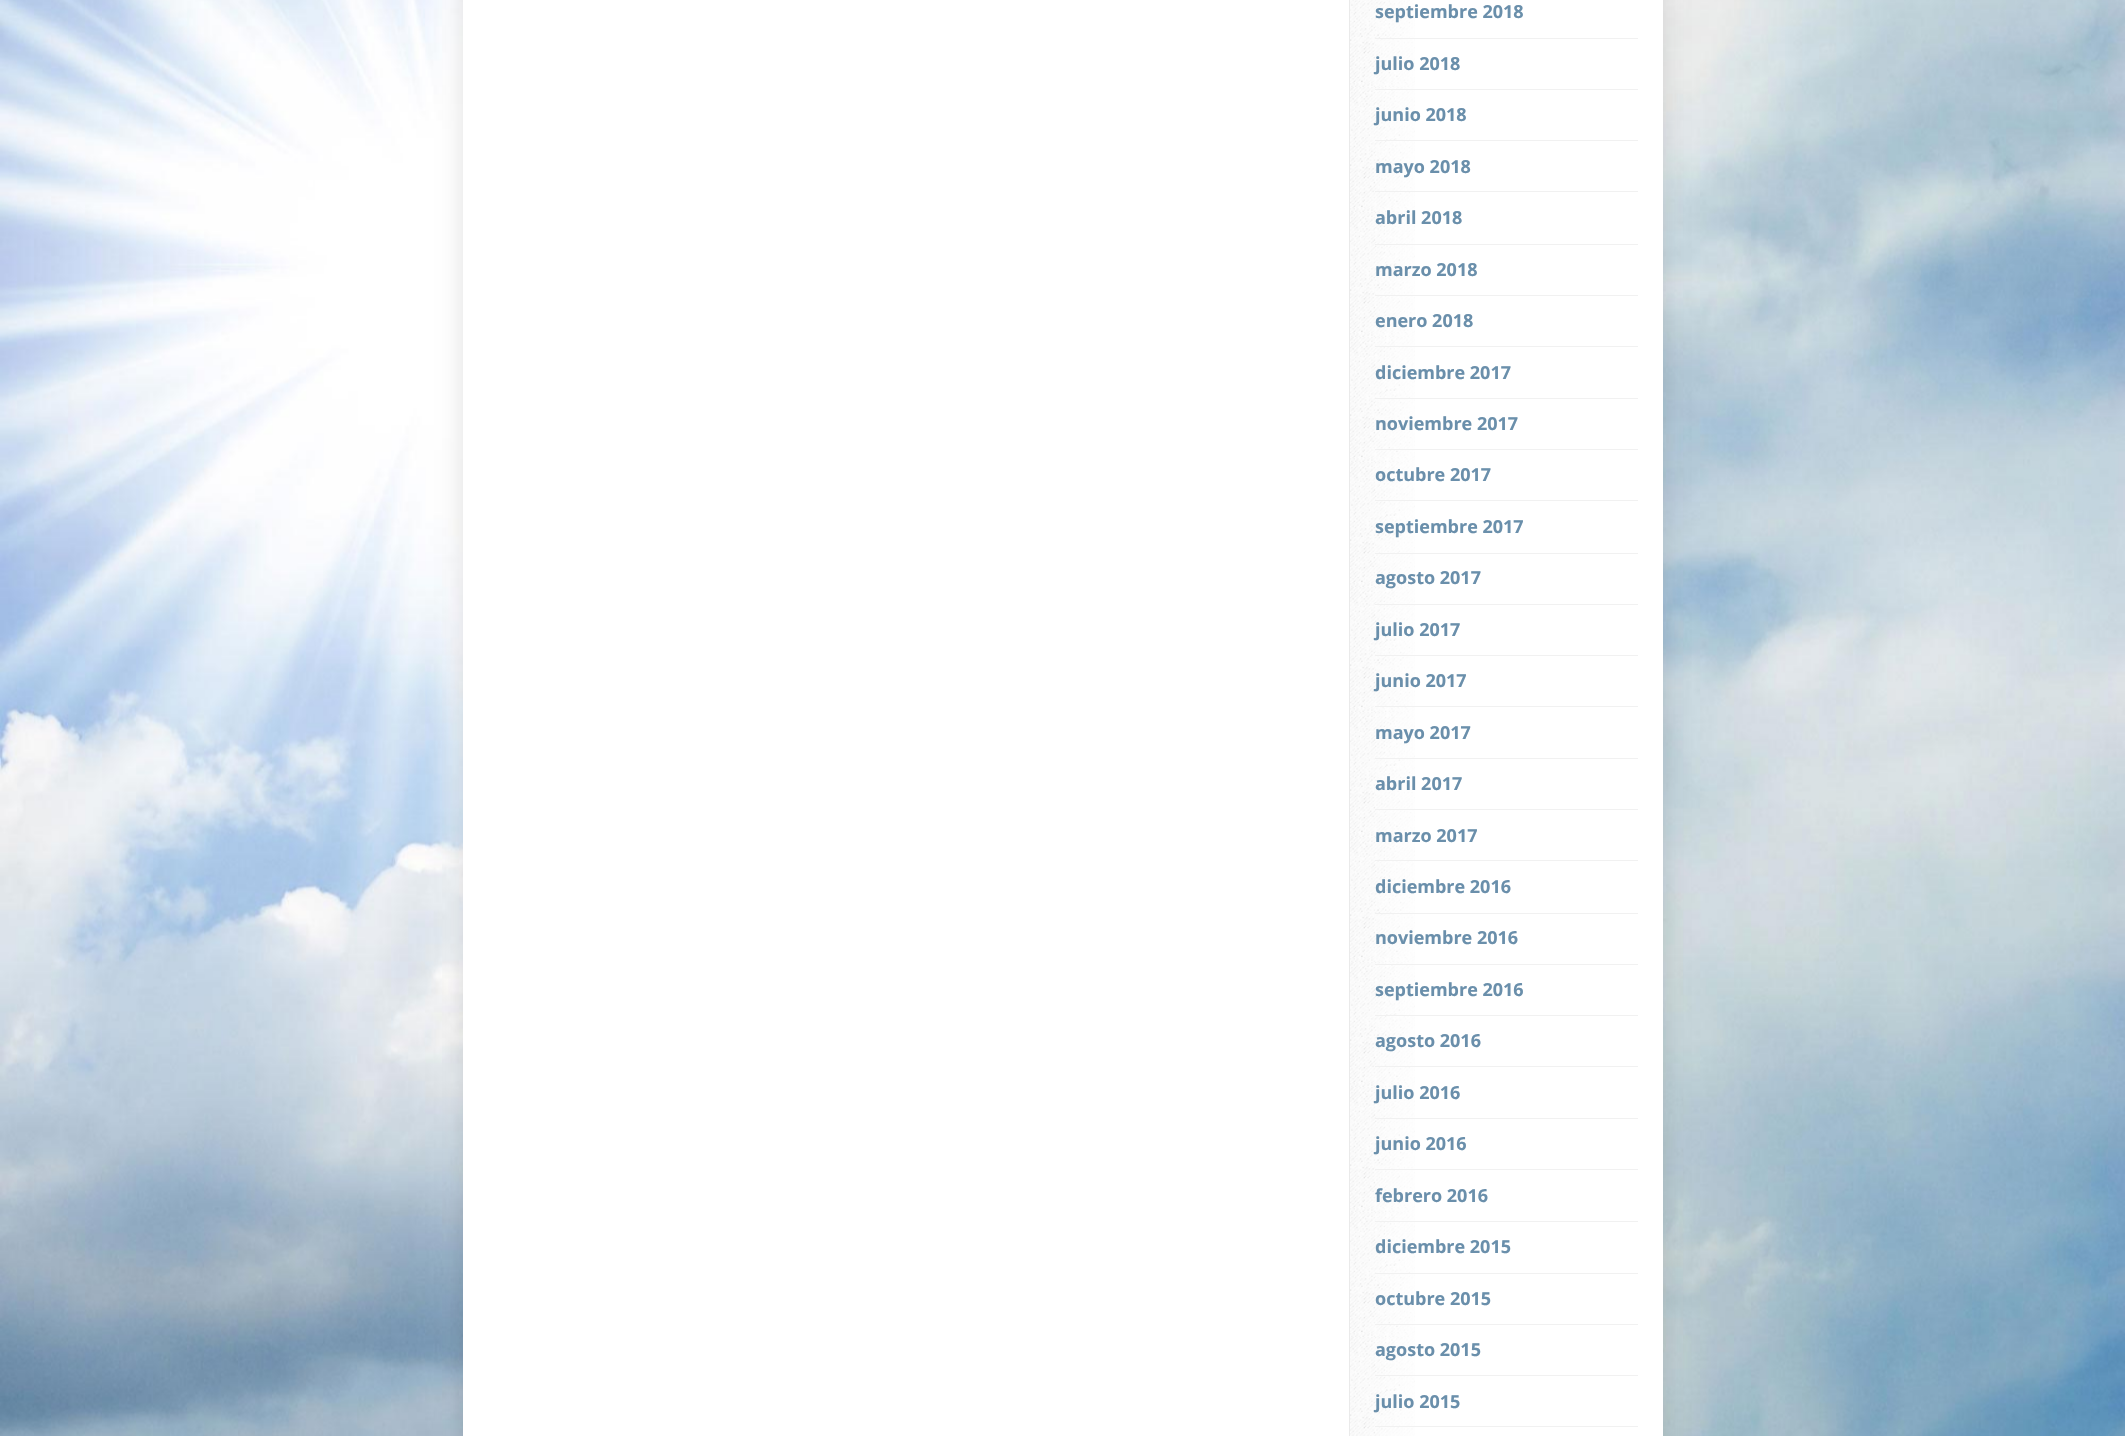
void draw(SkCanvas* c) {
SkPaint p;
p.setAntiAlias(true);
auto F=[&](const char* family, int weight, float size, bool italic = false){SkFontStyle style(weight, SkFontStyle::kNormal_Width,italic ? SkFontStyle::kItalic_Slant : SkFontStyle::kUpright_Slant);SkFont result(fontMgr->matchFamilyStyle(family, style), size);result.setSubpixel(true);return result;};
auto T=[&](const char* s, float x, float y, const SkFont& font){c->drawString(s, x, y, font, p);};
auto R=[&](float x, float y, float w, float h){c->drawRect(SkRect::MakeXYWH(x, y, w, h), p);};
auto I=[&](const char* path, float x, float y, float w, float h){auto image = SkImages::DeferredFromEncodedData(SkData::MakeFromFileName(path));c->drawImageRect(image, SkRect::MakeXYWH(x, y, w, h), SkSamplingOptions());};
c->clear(0xffffffff);
I("1.png",0,0,2125,1436);
p.setColor(0x1f000000);
p.setMaskFilter(SkMaskFilter::MakeBlur(kNormal_SkBlurStyle, 12.5));
c->drawRoundRect(SkRect::MakeXYWH(463,-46,1200,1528),8,8,p);
p.setMaskFilter(nullptr);
p.setColor(0xffffffff);
R(463,0,1200,1436);
I("2.png",1350,0,65,1436);
p.setColor(0xffeaeaea);
R(1349,0,1,1436);
auto f1 = F("Open Sans",700,18);
p.setColor(0xff6a8fab);
T("septiembre 2018",1375,18,f1);
p.setColor(0xfff1f1f1);
R(1375,38,263,1);
p.setColor(0xff6a8fab);
T("julio 2018",1375,70,f1);
p.setColor(0xfff1f1f1);
R(1375,89,263,1);
p.setColor(0xff6a8fab);
T("junio 2018",1375,121,f1);
p.setColor(0xfff1f1f1);
R(1375,140,263,1);
p.setColor(0xff6a8fab);
T("mayo 2018",1375,173,f1);
p.setColor(0xfff1f1f1);
R(1375,191,263,1);
p.setColor(0xff6a8fab);
T("abril 2018",1375,224,f1);
p.setColor(0xfff1f1f1);
R(1375,244,263,1);
p.setColor(0xff6a8fab);
T("marzo 2018",1375,276,f1);
p.setColor(0xfff1f1f1);
R(1375,295,263,1);
p.setColor(0xff6a8fab);
T("enero 2018",1375,327,f1);
p.setColor(0xfff1f1f1);
R(1375,346,263,1);
p.setColor(0xff6a8fab);
T("diciembre 2017",1375,379,f1);
p.setColor(0xfff1f1f1);
R(1375,398,263,1);
p.setColor(0xff6a8fab);
T("noviembre 2017",1375,430,f1);
p.setColor(0xfff1f1f1);
R(1375,449,263,1);
p.setColor(0xff6a8fab);
T("octubre 2017",1375,481,f1);
p.setColor(0xfff1f1f1);
R(1375,500,263,1);
p.setColor(0xff6a8fab);
T("septiembre 2017",1375,533,f1);
p.setColor(0xfff1f1f1);
R(1375,553,263,1);
p.setColor(0xff6a8fab);
T("agosto 2017",1375,584,f1);
p.setColor(0xfff1f1f1);
R(1375,604,263,1);
p.setColor(0xff6a8fab);
T("julio 2017",1375,636,f1);
p.setColor(0xfff1f1f1);
R(1375,655,263,1);
p.setColor(0xff6a8fab);
T("junio 2017",1375,687,f1);
p.setColor(0xfff1f1f1);
R(1375,706,263,1);
p.setColor(0xff6a8fab);
T("mayo 2017",1375,739,f1);
p.setColor(0xfff1f1f1);
R(1375,758,263,1);
p.setColor(0xff6a8fab);
T("abril 2017",1375,790,f1);
p.setColor(0xfff1f1f1);
R(1375,809,263,1);
p.setColor(0xff6a8fab);
T("marzo 2017",1375,842,f1);
p.setColor(0xfff1f1f1);
R(1375,860,263,1);
p.setColor(0xff6a8fab);
T("diciembre 2016",1375,893,f1);
p.setColor(0xfff1f1f1);
R(1375,913,263,1);
p.setColor(0xff6a8fab);
T("noviembre 2016",1375,944,f1);
p.setColor(0xfff1f1f1);
R(1375,964,263,1);
p.setColor(0xff6a8fab);
T("septiembre 2016",1375,996,f1);
p.setColor(0xfff1f1f1);
R(1375,1015,263,1);
p.setColor(0xff6a8fab);
T("agosto 2016",1375,1047,f1);
p.setColor(0xfff1f1f1);
R(1375,1066,263,1);
p.setColor(0xff6a8fab);
T("julio 2016",1375,1099,f1);
p.setColor(0xfff1f1f1);
R(1375,1118,263,1);
p.setColor(0xff6a8fab);
T("junio 2016",1375,1150,f1);
p.setColor(0xfff1f1f1);
R(1375,1169,263,1);
p.setColor(0xff6a8fab);
T("febrero 2016",1375,1202,f1);
p.setColor(0xfff1f1f1);
R(1375,1221,263,1);
p.setColor(0xff6a8fab);
T("diciembre 2015",1375,1253,f1);
p.setColor(0xfff1f1f1);
R(1375,1273,263,1);
p.setColor(0xff6a8fab);
T("octubre 2015",1375,1305,f1);
p.setColor(0xfff1f1f1);
R(1375,1324,263,1);
p.setColor(0xff6a8fab);
T("agosto 2015",1375,1356,f1);
p.setColor(0xfff1f1f1);
R(1375,1375,263,1);
p.setColor(0xff6a8fab);
T("julio 2015",1375,1408,f1);
p.setColor(0xfff1f1f1);
R(1375,1426,263,1);
}
